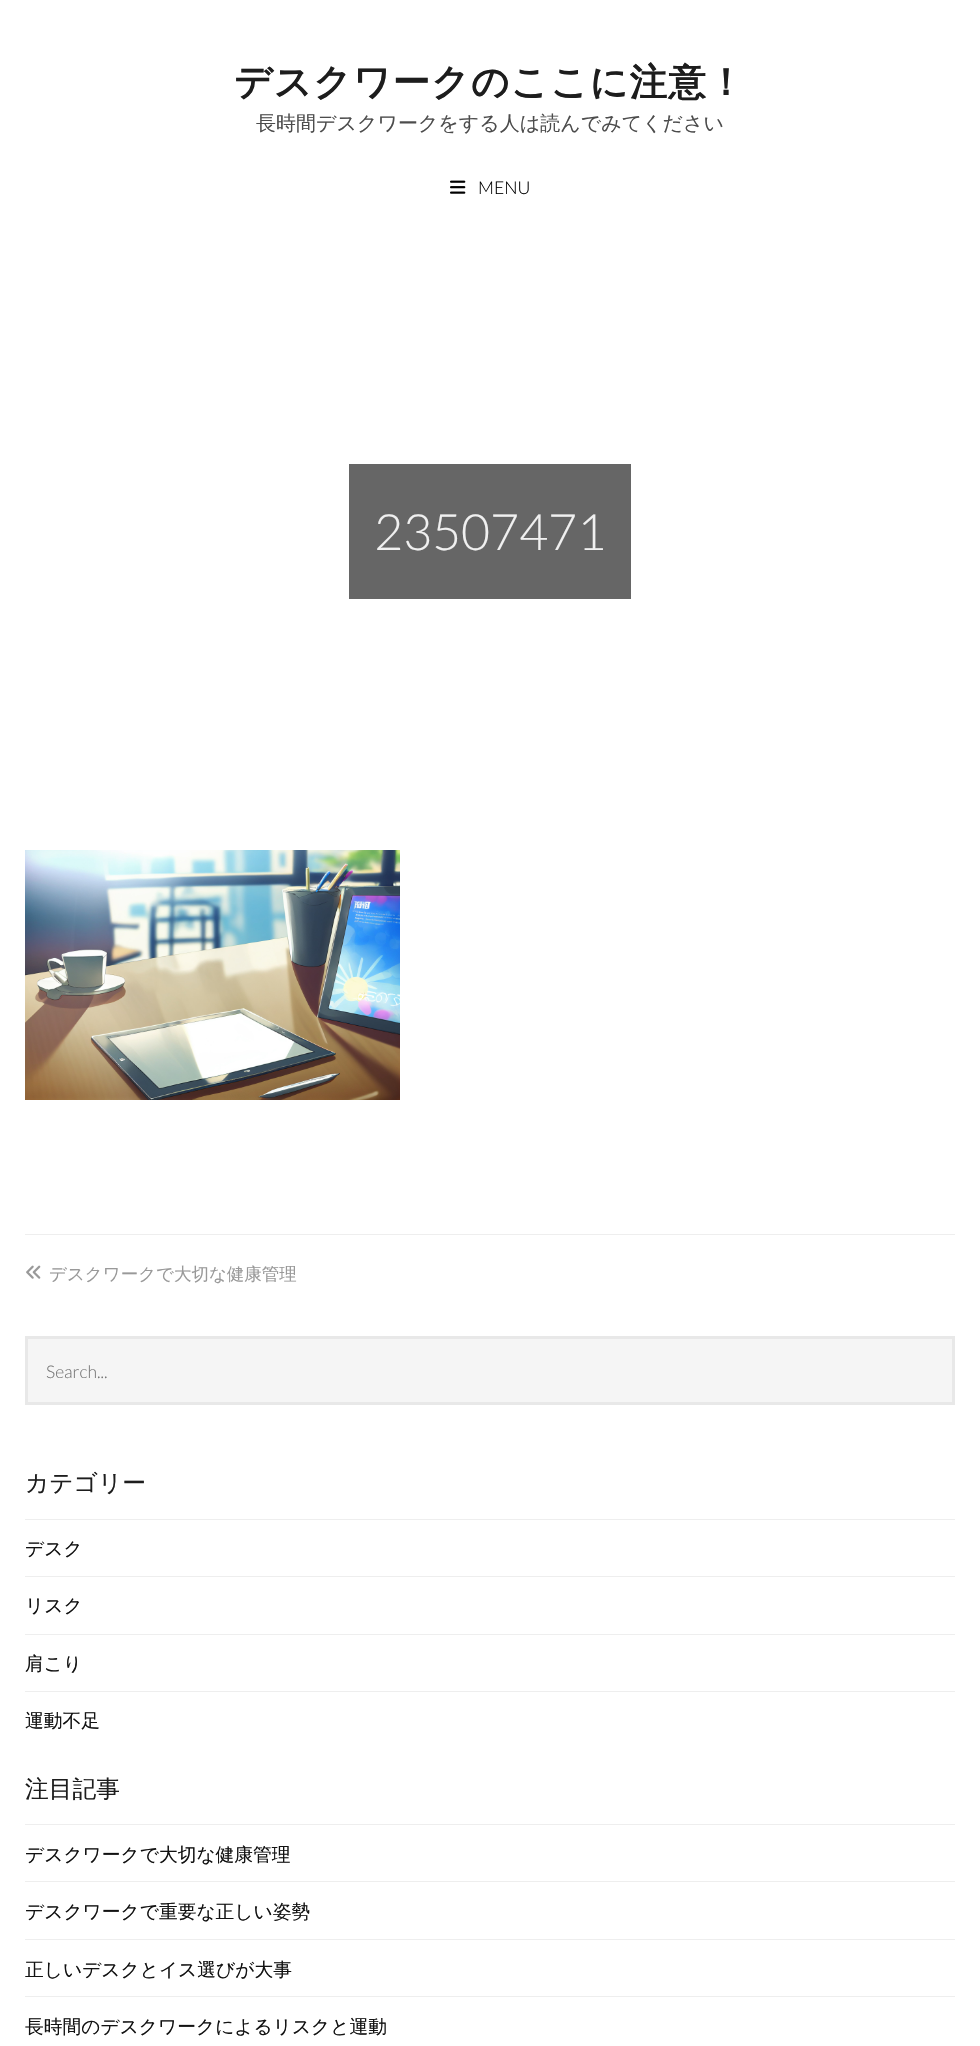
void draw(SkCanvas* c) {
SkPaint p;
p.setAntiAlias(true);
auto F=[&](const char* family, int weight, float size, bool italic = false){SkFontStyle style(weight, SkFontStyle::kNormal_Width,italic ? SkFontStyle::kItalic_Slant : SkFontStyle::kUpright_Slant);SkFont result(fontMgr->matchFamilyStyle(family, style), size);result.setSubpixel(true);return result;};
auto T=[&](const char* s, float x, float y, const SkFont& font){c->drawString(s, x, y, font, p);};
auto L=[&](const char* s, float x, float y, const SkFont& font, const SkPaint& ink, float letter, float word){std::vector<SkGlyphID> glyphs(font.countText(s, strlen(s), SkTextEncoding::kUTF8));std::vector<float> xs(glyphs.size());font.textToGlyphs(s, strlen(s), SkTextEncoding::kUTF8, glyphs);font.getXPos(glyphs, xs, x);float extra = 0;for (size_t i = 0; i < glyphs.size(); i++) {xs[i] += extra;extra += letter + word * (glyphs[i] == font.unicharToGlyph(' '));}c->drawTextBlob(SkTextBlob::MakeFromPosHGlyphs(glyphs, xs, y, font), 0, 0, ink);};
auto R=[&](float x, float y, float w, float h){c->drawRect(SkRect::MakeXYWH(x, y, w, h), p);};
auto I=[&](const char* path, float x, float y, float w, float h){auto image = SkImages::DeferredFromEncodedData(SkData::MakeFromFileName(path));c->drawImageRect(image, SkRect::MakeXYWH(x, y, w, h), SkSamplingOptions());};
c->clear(0xffffffff);
auto f1 = F("WenQuanYi Zen Hei",700,37.5);
p.setColor(0xff1d1d1d);
L("デスクワークのここに注意！",234,95,f1,p,1.25,0);
auto f2 = F("WenQuanYi Zen Hei",500,20);
p.setColor(0xff4c4c4c);
T("長時間デスクワークをする人は読んでみてください",256,130,f2);
I("1.png",450,180,16,14);
auto f3 = F("Lato",300,17.5);
p.setColor(0xff000000);
T("MENU",478,194,f3);
p.setColor(0xff666666);
R(349,464,282,135);
auto f4 = F("Lato",300,50);
p.setColor(0xfff0f0f0);
T("23507471",374,550,f4);
I("2.png",25,850,375,250);
p.setColor(0xffeeeeee);
R(25,1234,930,1);
I("3.png",26,1265,15,14);
auto f5 = F("WenQuanYi Zen Hei",500,17.5);
p.setColor(0xff999999);
T("デスクワークで大切な健康管理",49,1280,f5);
p.setColor(0xfff5f5f5);
c->drawRect(SkRect::MakeXYWH(26.5,1337.5,927,66),p);
p.setStroke(true);
p.setStrokeWidth(3);
p.setColor(0xffe8e8e8);
c->drawRect(SkRect::MakeXYWH(26.5,1337.5,927,66),p);
p.setStroke(false);
p.setColor(0xff757575);
T("Search...",46,1378,f3);
auto f6 = F("WenQuanYi Zen Hei",500,23.75);
p.setColor(0xff1d1d1d);
T("カテゴリー",25,1491,f6);
p.setColor(0xffeeeeee);
R(25,1519,930,1);
auto f7 = F("WenQuanYi Zen Hei",500,18.75);
p.setColor(0xff121212);
T("デスク",25,1555,f7);
p.setColor(0xffeeeeee);
R(25,1576,930,1);
p.setColor(0xff121212);
T("リスク",25,1612,f7);
p.setColor(0xffeeeeee);
R(25,1634,930,1);
p.setColor(0xff121212);
T("肩こり",25,1670,f7);
p.setColor(0xffeeeeee);
R(25,1691,930,1);
p.setColor(0xff121212);
T("運動不足",25,1727,f7);
p.setColor(0xff1d1d1d);
T("注目記事",25,1797,f6);
p.setColor(0xffeeeeee);
R(25,1824,930,1);
p.setColor(0xff121212);
T("デスクワークで大切な健康管理",25,1861,f7);
p.setColor(0xffeeeeee);
R(25,1881,930,1);
p.setColor(0xff121212);
T("デスクワークで重要な正しい姿勢",25,1918,f7);
p.setColor(0xffeeeeee);
R(25,1939,930,1);
p.setColor(0xff121212);
T("正しいデスクとイス選びが大事",25,1976,f7);
p.setColor(0xffeeeeee);
R(25,1996,930,1);
p.setColor(0xff121212);
T("長時間のデスクワークによるリスクと運動",25,2033,f7);
}
